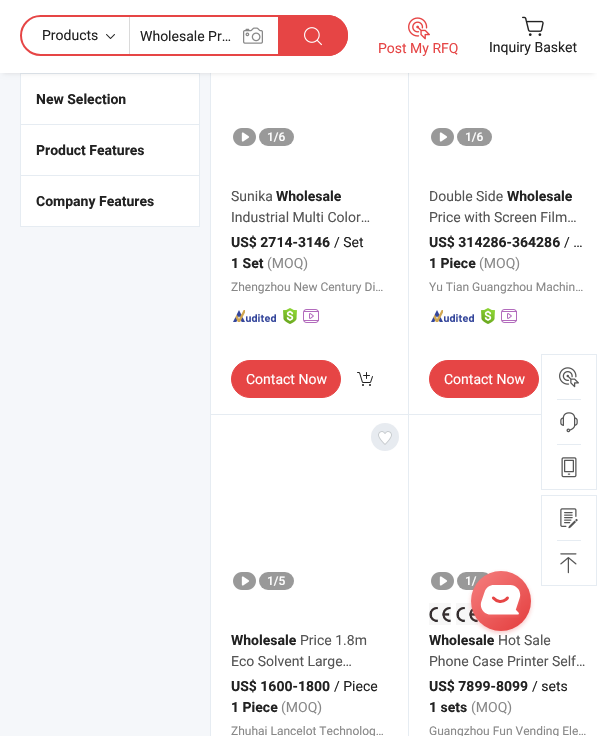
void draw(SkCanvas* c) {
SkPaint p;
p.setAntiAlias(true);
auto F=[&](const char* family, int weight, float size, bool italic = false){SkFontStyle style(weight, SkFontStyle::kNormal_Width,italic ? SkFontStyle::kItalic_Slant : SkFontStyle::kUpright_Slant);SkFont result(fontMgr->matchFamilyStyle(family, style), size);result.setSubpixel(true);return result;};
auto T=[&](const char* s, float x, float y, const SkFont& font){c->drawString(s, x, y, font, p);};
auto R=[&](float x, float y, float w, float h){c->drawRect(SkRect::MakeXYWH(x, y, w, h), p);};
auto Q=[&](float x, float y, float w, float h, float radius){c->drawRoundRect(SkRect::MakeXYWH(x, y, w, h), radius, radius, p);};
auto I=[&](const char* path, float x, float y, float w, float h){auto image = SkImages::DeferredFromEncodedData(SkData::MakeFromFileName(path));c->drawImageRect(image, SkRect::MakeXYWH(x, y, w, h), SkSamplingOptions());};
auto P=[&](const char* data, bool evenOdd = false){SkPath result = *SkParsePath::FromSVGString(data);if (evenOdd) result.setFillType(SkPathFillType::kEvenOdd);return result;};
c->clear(0xfff5f7fa);
p.setColor(0xffffffff);
c->drawRect(SkRect::MakeXYWH(20.5,73.5,179,51),p);
p.setStroke(true);
p.setStrokeWidth(1);
p.setColor(0xffe6ecf2);
c->drawRect(SkRect::MakeXYWH(20.5,73.5,179,51),p);
p.setStroke(false);
p.setColor(0xffffffff);
R(211,73,386,663);
p.setColor(0xffe6ecf2);
R(210,73,1,663);
c->drawPath(P("M410 415h-200l1-1h198z"),p);
c->drawPath(P("M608 415h-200l1-1h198z"),p);
R(408,73,1,663);
p.setColor(0x1f000000);
p.setMaskFilter(SkMaskFilter::MakeBlur(kNormal_SkBlurStyle, 2.5));
c->drawRect(SkRect::MakeXYWH(3,6,591,67),p);
p.setMaskFilter(nullptr);
p.setColor(0xffffffff);
R(0,0,597,73);
p.setStroke(true);
p.setStrokeWidth(2);
p.setColor(0xffe64545);
c->drawRoundRect(SkRect::MakeXYWH(21,16,326,39),19.5,19.5,p);
p.setStroke(false);
p.setColor(0xffdadada);
R(129,17,1,37);
auto f1 = F("Roboto",400,14);
p.setColor(0xff222222);
T("Products",42,40,f1);
I("1.png",106,34,9,5);
T("Wholesale Pr…",140,41,f1);
I("2.png",243,27,20,17);
p.setColor(0xffe64545);
c->drawPath(P("M278 15h49.5c11.5 0 20.5 9 20.5 20.5c0 11.5-9 20.5-20.5 20.5h-49.5z"),p);
I("3.png",304,27,18,19);
I("4.png",408,17,22,23);
T("Post My RFQ",378,53,f1);
I("5.png",522,16,22,20);
p.setColor(0xff222222);
T("Inquiry Basket",489,52,f1);
auto f2 = F("Roboto",700,14);
T("New Selection",36,104,f2);
p.setColor(0xffffffff);
c->drawRect(SkRect::MakeXYWH(20.5,124.5,179,51),p);
p.setStroke(true);
p.setStrokeWidth(1);
p.setColor(0xffe6ecf2);
c->drawRect(SkRect::MakeXYWH(20.5,124.5,179,51),p);
p.setStroke(false);
p.setColor(0xff222222);
T("Product Features",36,155,f2);
p.setColor(0xffffffff);
c->drawRect(SkRect::MakeXYWH(20.5,175.5,179,51),p);
p.setStroke(true);
p.setColor(0xffe6ecf2);
c->drawRect(SkRect::MakeXYWH(20.5,175.5,179,51),p);
p.setStroke(false);
p.setColor(0xff222222);
T("Company Features",36,206,f2);
I("6.png",233,128,23,18);
p.setColor(0xff999999);
Q(259,128,35,18,9);
auto f3 = F("Roboto",500,12);
p.setColor(0xffffffff);
T("1/6",267,141,f3);
p.setColor(0xff555555);
T("Sunika",231,201,f1);
p.setColor(0xff222222);
T("Wholesale",276,201,f2);
p.setColor(0xff555555);
T("Industrial Multi Color…",231,222,f1);
p.setColor(0xff222222);
T("US$ 2714-3146",231,247,f2);
T("/ Set",334,247,f1);
T("1 Set",231,268,f2);
p.setColor(0xff888888);
T("(MOQ)",267,268,f1);
auto f4 = F("Roboto",400,12);
T("Zhengzhou New Century Di…",231,291,f4);
I("7.png",233,310,43,12);
I("8.png",283,308,14,16);
I("9.png",303,309,16,14);
p.setColor(0xffe64545);
c->drawRoundRect(SkRect::MakeXYWH(231.5,360.5,109,37),18.5,18.5,p);
p.setStroke(true);
c->drawRoundRect(SkRect::MakeXYWH(231.5,360.5,109,37),18.5,18.5,p);
p.setStroke(false);
p.setColor(0xffffffff);
T("Contact Now",246,384,f1);
I("10.png",357,372,16,14);
I("6.png",431,128,23,18);
p.setColor(0xff999999);
Q(457,128,35,18,9);
p.setColor(0xffffffff);
T("1/6",465,141,f3);
p.setColor(0xff555555);
T("Double Side",429,201,f1);
p.setColor(0xff222222);
T("Wholesale",507,201,f2);
p.setColor(0xff555555);
T("Price with Screen Film…",429,222,f1);
p.setColor(0xff222222);
T("US$ 314286-364286",429,247,f2);
T("/ …",564,247,f1);
T("1 Piece",429,268,f2);
p.setColor(0xff888888);
T("(MOQ)",479,268,f1);
T("Yu Tian Guangzhou Machin…",429,291,f4);
I("7.png",431,310,43,12);
I("8.png",481,308,14,16);
I("9.png",501,309,16,14);
p.setColor(0xffe64545);
c->drawRoundRect(SkRect::MakeXYWH(429.5,360.5,109,37),18.5,18.5,p);
p.setStroke(true);
c->drawRoundRect(SkRect::MakeXYWH(429.5,360.5,109,37),18.5,18.5,p);
p.setStroke(false);
p.setColor(0xffffffff);
T("Contact Now",444,384,f1);
p.setColor(0xffe7ebf0);
c->drawCircle(385,437,14,p);
I("11.png",378,431,14,14);
I("12.png",378,431,14,14);
I("6.png",233,572,23,18);
p.setColor(0xff999999);
Q(259,572,35,18,9);
p.setColor(0xffffffff);
T("1/5",267,585,f3);
p.setColor(0xff222222);
T("Wholesale",231,645,f2);
p.setColor(0xff555555);
T("Price 1.8m",300,645,f1);
T("Eco Solvent Large…",231,666,f1);
p.setColor(0xff222222);
T("US$ 1600-1800",231,691,f2);
T("/ Piece",334,691,f1);
T("1 Piece",231,712,f2);
p.setColor(0xff888888);
T("(MOQ)",281,712,f1);
T("Zhuhai Lancelot Technolog…",231,735,f4);
I("6.png",431,572,23,18);
p.setColor(0xff999999);
Q(457,572,35,18,9);
p.setColor(0xffffffff);
T("1/",465,585,f3);
I("13.png",429,607,22,16);
p.setColor(0x08000000);
R(429,603,22,22);
I("14.png",456,607,22,16);
R(456,603,22,22);
p.setColor(0xff222222);
T("Wholesale",429,645,f2);
p.setColor(0xff555555);
T("Hot Sale",498,645,f1);
T("Phone Case Printer Self…",429,666,f1);
p.setColor(0xff222222);
T("US$ 7899-8099",429,691,f2);
T("/ sets",532,691,f1);
T("1 sets",429,712,f2);
p.setColor(0xff888888);
T("(MOQ)",471,712,f1);
T("Guangzhou Fun Vending Ele…",429,735,f4);
p.setColor(0xffe6ecf2);
R(541,354,56,1);
R(596,354,1,136);
R(541,354,1,90);
I("15.png",559,367,20,21);
p.setColor(0xffffffff);
R(542,414,54,1);
p.setColor(0xffe6ecf2);
R(557,399,24,1);
I("16.png",560,412,18,21);
R(541,489,56,1);
R(541,444,1,46);
R(557,444,24,1);
I("17.png",561,457,16,21);
R(541,495,56,1);
R(596,495,1,91);
R(541,495,1,45);
I("18.png",560,508,18,21);
R(541,585,56,1);
R(541,540,1,46);
R(557,540,24,1);
I("19.png",560,553,17,21);
p.setColor(0x4de64545);
p.setMaskFilter(SkMaskFilter::MakeBlur(kNormal_SkBlurStyle, 2));
c->drawRoundRect(SkRect::MakeXYWH(471,573,60,60),30,30,p);
p.setMaskFilter(nullptr);
{
const SkColor colors[] = {0xfff47b7b,0xffe64545};
const float stops[] = {.07,.87};
const SkPoint ends[] = {{473,569}, {529,633}};
p.setShader(SkGradientShader::MakeLinear(ends, colors, stops, 2, SkTileMode::kClamp));
p.setAlpha(255);
}
c->drawCircle(501,601,30,p);
I("20.png",480,585,41,33);
}
